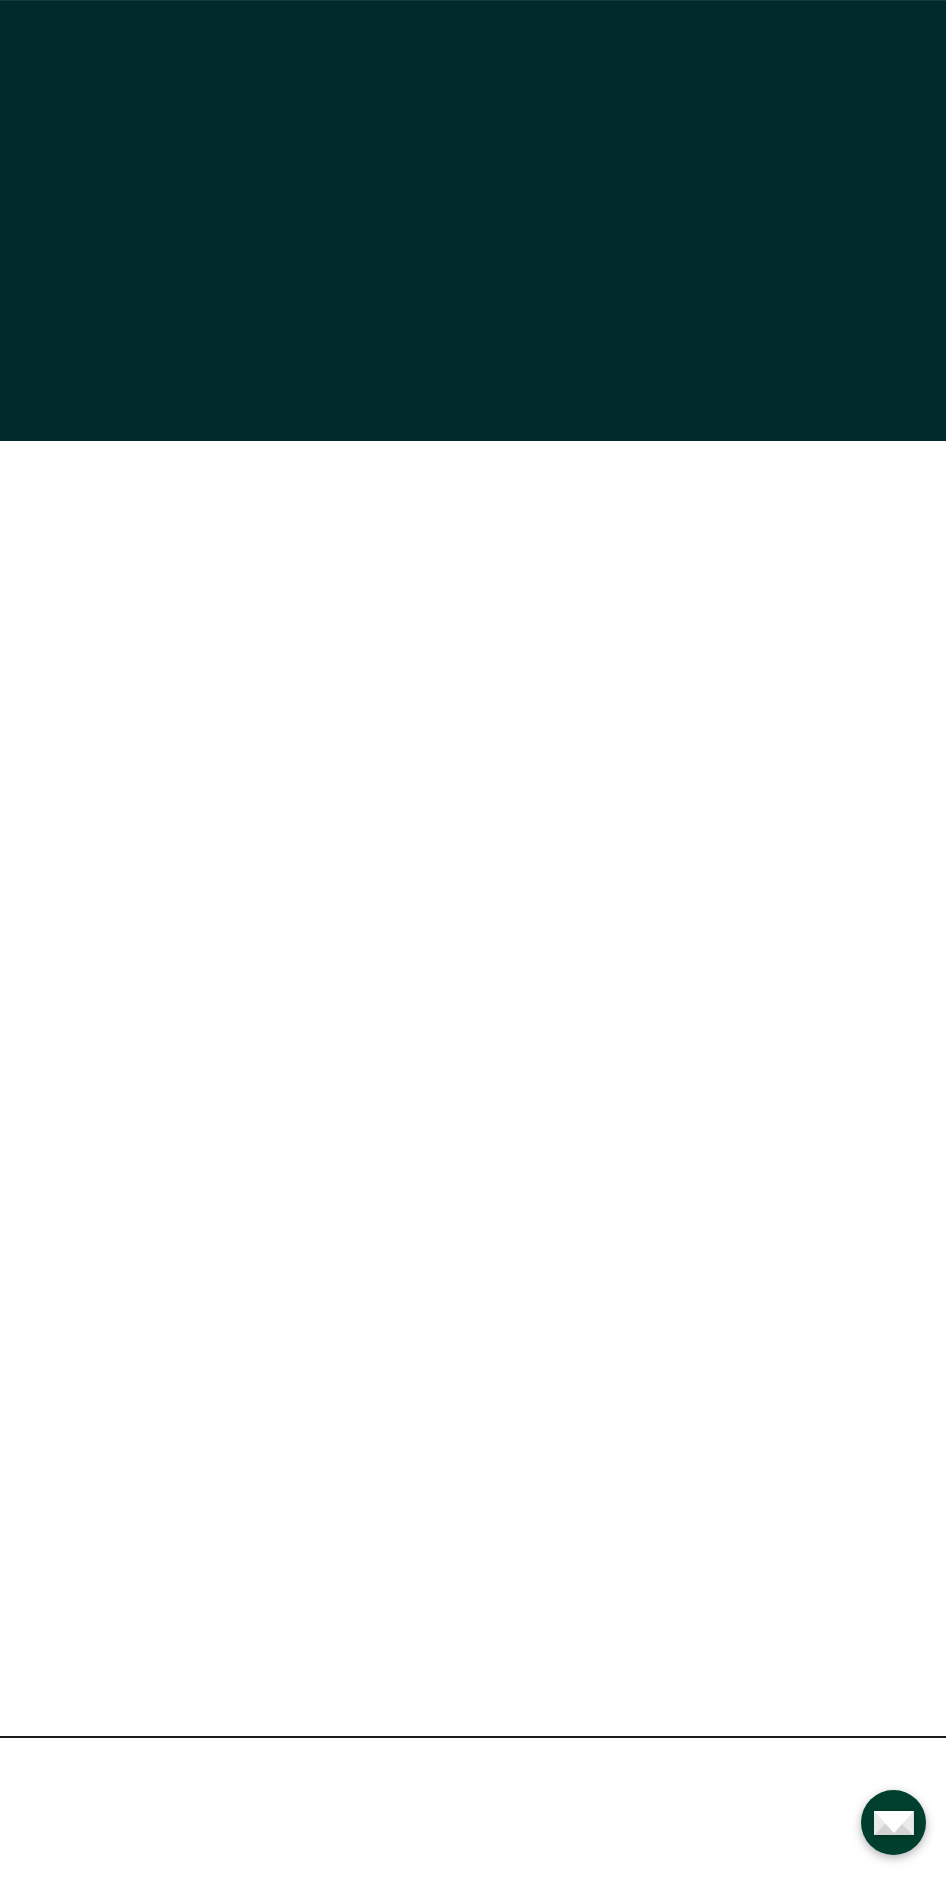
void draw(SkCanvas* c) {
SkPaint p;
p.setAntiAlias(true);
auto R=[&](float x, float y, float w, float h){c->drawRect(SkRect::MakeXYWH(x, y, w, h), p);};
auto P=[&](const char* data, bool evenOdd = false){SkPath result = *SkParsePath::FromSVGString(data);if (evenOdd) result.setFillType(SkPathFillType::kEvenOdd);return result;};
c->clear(0xffffffff);
p.setColor(0xff153b3e);
R(0,0,946,1);
p.setColor(0xff012a2d);
R(0,1,946,440);
p.setColor(0xff1a1a1a);
R(0,1736,946,2);
p.setColor(0x4d000000);
p.setMaskFilter(SkMaskFilter::MakeBlur(kNormal_SkBlurStyle, 5));
c->drawRoundRect(SkRect::MakeXYWH(861,1793,65,65),32.5,32.5,p);
p.setMaskFilter(nullptr);
p.setColor(0xff003f2d);
c->drawCircle(893.5,1822.5,32.5,p);
p.setColor(0x33000000);
p.setMaskFilter(SkMaskFilter::MakeBlur(kNormal_SkBlurStyle, 2.5));
c->drawRect(SkRect::MakeXYWH(874,1813,40,24),p);
p.setMaskFilter(nullptr);
p.setColor(0xffdddddd);
R(874,1811,40,24);
p.setColor(0xffd4d4d4);
c->drawPath(P("M914 1835h-40l20-22z"),p);
p.setColor(0xffeaeaea);
c->drawPath(P("M874 1835v-24l12 12zm39-24v24l-12-12z"),p);
p.setColor(0xffffffff);
c->drawPath(P("M874 1811h40l-20 22z"),p);
}
